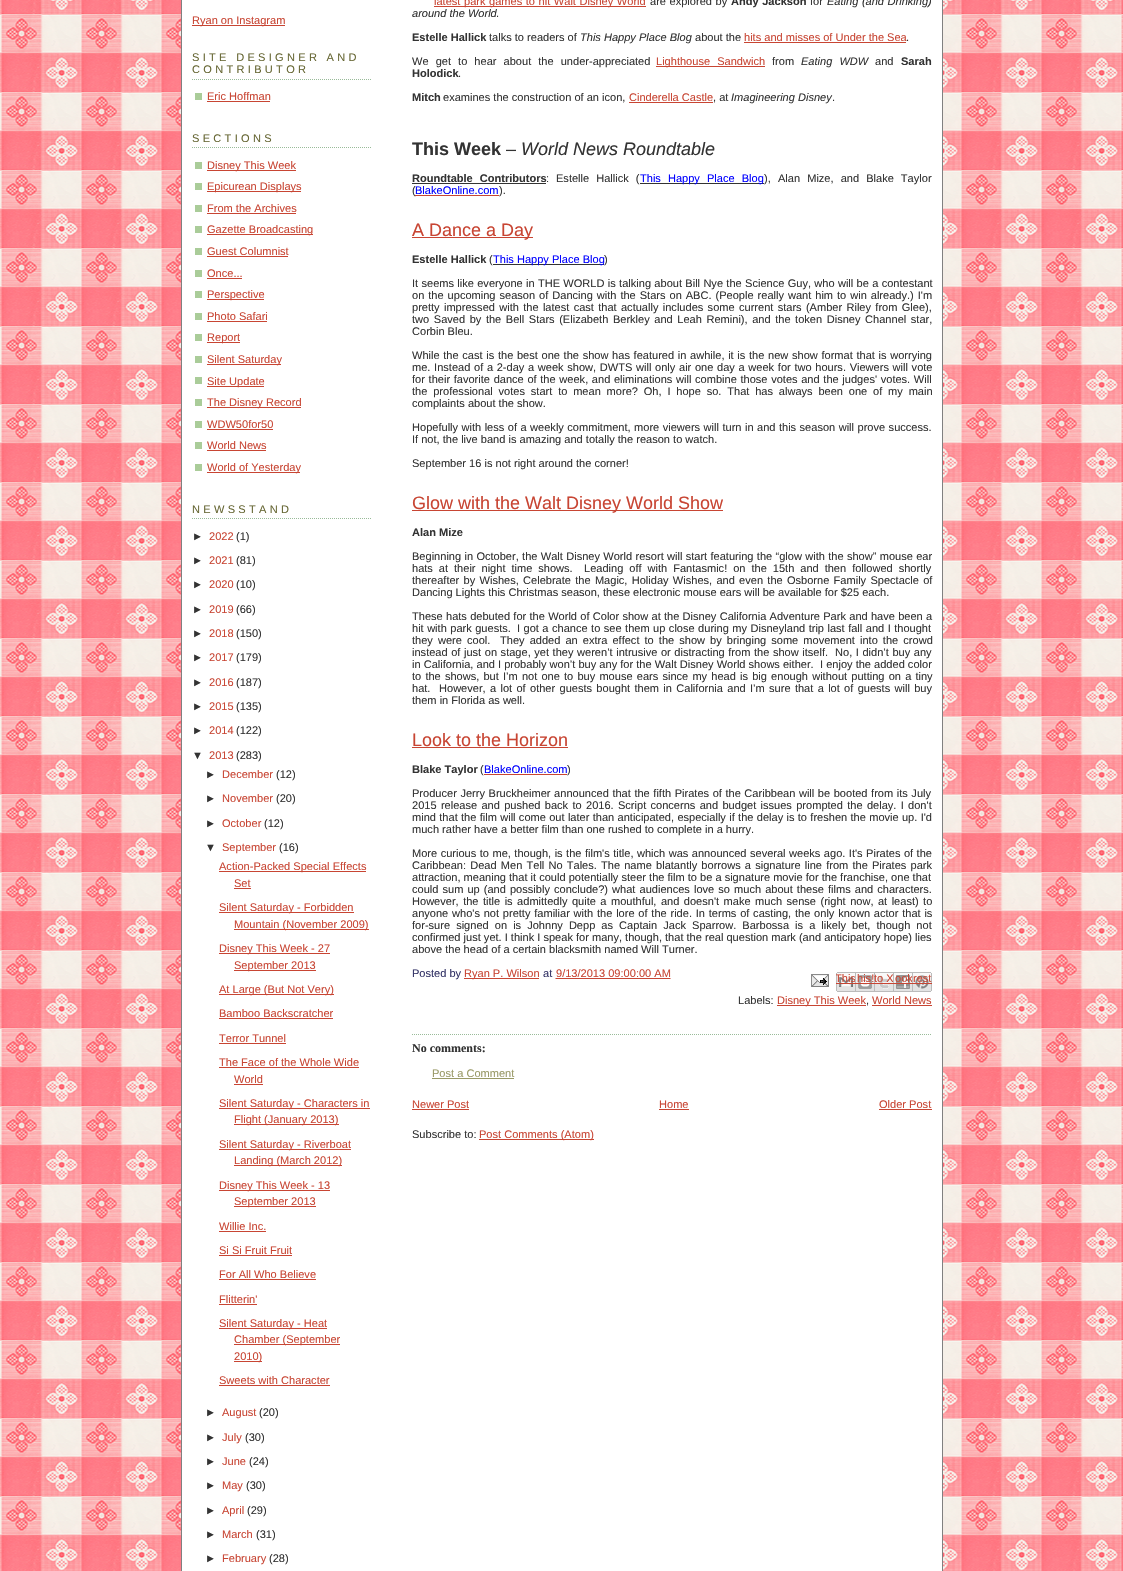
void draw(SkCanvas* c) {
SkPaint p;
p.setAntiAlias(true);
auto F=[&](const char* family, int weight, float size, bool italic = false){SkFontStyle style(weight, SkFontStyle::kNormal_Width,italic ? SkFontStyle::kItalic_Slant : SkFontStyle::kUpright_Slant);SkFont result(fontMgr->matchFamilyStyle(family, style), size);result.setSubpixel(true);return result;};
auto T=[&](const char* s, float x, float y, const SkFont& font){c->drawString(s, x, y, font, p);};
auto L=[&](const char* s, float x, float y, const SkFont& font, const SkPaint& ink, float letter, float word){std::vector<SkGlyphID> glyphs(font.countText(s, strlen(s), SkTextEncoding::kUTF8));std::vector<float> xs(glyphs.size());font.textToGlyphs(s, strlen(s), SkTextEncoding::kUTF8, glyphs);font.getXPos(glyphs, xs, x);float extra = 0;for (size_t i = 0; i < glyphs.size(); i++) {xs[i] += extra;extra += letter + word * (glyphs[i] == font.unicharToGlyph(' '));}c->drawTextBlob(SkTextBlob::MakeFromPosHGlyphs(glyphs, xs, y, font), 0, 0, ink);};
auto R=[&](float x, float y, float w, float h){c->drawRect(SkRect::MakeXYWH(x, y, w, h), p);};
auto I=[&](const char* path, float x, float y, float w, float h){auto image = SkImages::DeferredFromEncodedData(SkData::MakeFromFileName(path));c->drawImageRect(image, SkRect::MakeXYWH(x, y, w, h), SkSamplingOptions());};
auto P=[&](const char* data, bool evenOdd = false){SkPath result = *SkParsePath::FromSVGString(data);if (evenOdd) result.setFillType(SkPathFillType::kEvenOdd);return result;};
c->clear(0xffffffff);
I("1.png",0,0,1123,1571);
p.setColor(0xffffffff);
c->drawRect(SkRect::MakeXYWH(181.5,-.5,761,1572),p);
p.setStroke(true);
p.setStrokeWidth(1);
p.setColor(0xff808080);
c->drawRect(SkRect::MakeXYWH(181.5,-.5,761,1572),p);
p.setStroke(false);
p.setColor(0xffc84533);
R(192,25,93,1);
auto f1 = F("Liberation Sans",400,11.05);
T("Ryan on Instagram",192,24,f1);
p.setStroke(true);
p.setColor(0xff99bb99);
p.setPathEffect(SkDashPathEffect::Make({{1,1}}, 0));
c->drawPath(P("M192 79.5h180"),p);
p.setPathEffect(nullptr);
p.setStroke(false);
p.setColor(0xff666633);
L("SITE DESIGNER AND",192,61,f1,p,3.3,0);
L("CONTRIBUTOR",192,73,f1,p,3.3,0);
p.setColor(0xffaacc99);
R(195,93,7,7);
p.setColor(0xffc84533);
T("Eric Hoffman",207,100,f1);
R(207,101,63,1);
p.setStroke(true);
p.setColor(0xff99bb99);
p.setPathEffect(SkDashPathEffect::Make({{1,1}}, 0));
c->drawPath(P("M192 147.5h180"),p);
p.setPathEffect(nullptr);
p.setStroke(false);
p.setColor(0xff666633);
L("SECTIONS",192,142,f1,p,3.3,0);
p.setColor(0xffaacc99);
R(195,162,7,7);
p.setColor(0xffc84533);
R(207,170,89,1);
T("Disney This Week",207,169,f1);
p.setColor(0xffaacc99);
R(195,183,7,7);
p.setColor(0xffc84533);
R(207,191,94,1);
T("Epicurean Displays",207,190,f1);
p.setColor(0xffaacc99);
R(195,205,7,7);
p.setColor(0xffc84533);
T("From the Archives",207,212,f1);
R(207,213,89,1);
p.setColor(0xffaacc99);
R(195,226,7,7);
p.setColor(0xffc84533);
R(207,234,106,1);
T("Gazette Broadcasting",207,233,f1);
p.setColor(0xffaacc99);
R(195,248,7,7);
p.setColor(0xffc84533);
T("Guest Columnist",207,255,f1);
R(207,256,81,1);
p.setColor(0xffaacc99);
R(195,270,7,7);
p.setColor(0xffc84533);
T("Once...",207,277,f1);
R(207,278,35,1);
p.setColor(0xffaacc99);
R(195,291,7,7);
p.setColor(0xffc84533);
R(207,299,57,1);
T("Perspective",207,298,f1);
p.setColor(0xffaacc99);
R(195,313,7,7);
p.setColor(0xffc84533);
T("Photo Safari",207,320,f1);
R(207,321,60,1);
p.setColor(0xffaacc99);
R(195,334,7,7);
p.setColor(0xffc84533);
R(207,342,33,1);
T("Report",207,341,f1);
p.setColor(0xffaacc99);
R(195,356,7,7);
p.setColor(0xffc84533);
R(207,364,74,1);
T("Silent Saturday",207,363,f1);
p.setColor(0xffaacc99);
R(195,377,7,7);
p.setColor(0xffc84533);
R(207,386,57,1);
T("Site Update",207,385,f1);
p.setColor(0xffaacc99);
R(195,399,7,7);
p.setColor(0xffc84533);
R(207,407,94,1);
T("The Disney Record",207,406,f1);
p.setColor(0xffaacc99);
R(195,421,7,7);
p.setColor(0xffc84533);
T("WDW50for50",207,428,f1);
R(207,429,66,1);
p.setColor(0xffaacc99);
R(195,442,7,7);
p.setColor(0xffc84533);
T("World News",207,449,f1);
R(207,450,59,1);
p.setColor(0xffaacc99);
R(195,464,7,7);
p.setColor(0xffc84533);
R(207,472,93,1);
T("World of Yesterday",207,471,f1);
p.setStroke(true);
p.setColor(0xff99bb99);
p.setPathEffect(SkDashPathEffect::Make({{1,1}}, 0));
c->drawPath(P("M192 518.5h180"),p);
p.setPathEffect(nullptr);
p.setStroke(false);
p.setColor(0xff666633);
L("NEWSSTAND",192,513,f1,p,3.3,0);
p.setColor(0xff333333);
T("►",192,540,f1);
p.setColor(0xffc84533);
T("2022",209,540,f1);
p.setColor(0xff333333);
T("(1)",236,540,f1);
T("►",192,564,f1);
p.setColor(0xffc84533);
T("2021",209,564,f1);
p.setColor(0xff333333);
T("(81)",236,564,f1);
T("►",192,588,f1);
p.setColor(0xffc84533);
T("2020",209,588,f1);
p.setColor(0xff333333);
T("(10)",236,588,f1);
T("►",192,613,f1);
p.setColor(0xffc84533);
T("2019",209,613,f1);
p.setColor(0xff333333);
T("(66)",236,613,f1);
T("►",192,637,f1);
p.setColor(0xffc84533);
T("2018",209,637,f1);
p.setColor(0xff333333);
T("(150)",236,637,f1);
T("►",192,661,f1);
p.setColor(0xffc84533);
T("2017",209,661,f1);
p.setColor(0xff333333);
T("(179)",236,661,f1);
T("►",192,686,f1);
p.setColor(0xffc84533);
T("2016",209,686,f1);
p.setColor(0xff333333);
T("(187)",236,686,f1);
T("►",192,710,f1);
p.setColor(0xffc84533);
T("2015",209,710,f1);
p.setColor(0xff333333);
T("(135)",236,710,f1);
T("►",192,734,f1);
p.setColor(0xffc84533);
T("2014",209,734,f1);
p.setColor(0xff333333);
T("(122)",236,734,f1);
T("▼",192,759,f1);
p.setColor(0xffc84533);
T("2013",209,759,f1);
p.setColor(0xff333333);
T("(283)",236,759,f1);
T("►",205,778,f1);
p.setColor(0xffc84533);
T("December",222,778,f1);
p.setColor(0xff333333);
T("(12)",276,778,f1);
T("►",205,802,f1);
p.setColor(0xffc84533);
T("November",222,802,f1);
p.setColor(0xff333333);
T("(20)",276,802,f1);
T("►",205,827,f1);
p.setColor(0xffc84533);
T("October",222,827,f1);
p.setColor(0xff333333);
T("(12)",264,827,f1);
T("▼",205,851,f1);
p.setColor(0xffc84533);
T("September",222,851,f1);
p.setColor(0xff333333);
T("(16)",279,851,f1);
p.setColor(0xffc84533);
R(219,871,147,1);
T("Action-Packed Special Effects",219,870,f1);
T("Set",234,887,f1);
R(234,888,17,1);
R(219,912,135,1);
T("Silent Saturday - Forbidden",219,911,f1);
R(234,929,135,1);
T("Mountain (November 2009)",234,928,f1);
R(219,953,111,1);
T("Disney This Week - 27",219,952,f1);
R(234,970,82,1);
T("September 2013",234,969,f1);
R(219,994,115,1);
T("At Large (But Not Very)",219,993,f1);
T("Bamboo Backscratcher",219,1017,f1);
R(219,1018,114,1);
T("Terror Tunnel",219,1042,f1);
R(219,1043,67,1);
T("The Face of the Whole Wide",219,1066,f1);
R(219,1067,140,1);
T("World",234,1083,f1);
R(234,1084,29,1);
R(219,1108,151,1);
T("Silent Saturday - Characters in",219,1107,f1);
R(234,1124,105,1);
T("Flight (January 2013)",234,1123,f1);
R(219,1149,132,1);
T("Silent Saturday - Riverboat",219,1148,f1);
R(234,1165,108,1);
T("Landing (March 2012)",234,1164,f1);
R(219,1190,111,1);
T("Disney This Week - 13",219,1189,f1);
R(234,1206,82,1);
T("September 2013",234,1205,f1);
T("Willie Inc.",219,1230,f1);
R(219,1231,47,1);
T("Si Si Fruit Fruit",219,1254,f1);
R(219,1255,73,1);
T("For All Who Believe",219,1278,f1);
R(219,1279,97,1);
T("Flitterin'",219,1303,f1);
R(219,1304,38,1);
R(219,1328,108,1);
T("Silent Saturday - Heat",219,1327,f1);
R(234,1344,106,1);
T("Chamber (September",234,1343,f1);
R(234,1361,28,1);
T("2010)",234,1360,f1);
T("Sweets with Character",219,1384,f1);
R(219,1385,111,1);
p.setColor(0xff333333);
T("►",205,1416,f1);
p.setColor(0xffc84533);
T("August",222,1416,f1);
p.setColor(0xff333333);
T("(20)",259,1416,f1);
T("►",205,1441,f1);
p.setColor(0xffc84533);
T("July",222,1441,f1);
p.setColor(0xff333333);
T("(30)",245,1441,f1);
T("►",205,1465,f1);
p.setColor(0xffc84533);
T("June",222,1465,f1);
p.setColor(0xff333333);
T("(24)",249,1465,f1);
T("►",205,1489,f1);
p.setColor(0xffc84533);
T("May",222,1489,f1);
p.setColor(0xff333333);
T("(30)",246,1489,f1);
T("►",205,1514,f1);
p.setColor(0xffc84533);
T("April",222,1514,f1);
p.setColor(0xff333333);
T("(29)",247,1514,f1);
T("►",205,1538,f1);
p.setColor(0xffc84533);
T("March",222,1538,f1);
p.setColor(0xff333333);
T("(31)",256,1538,f1);
T("►",205,1562,f1);
p.setColor(0xffc84533);
T("February",222,1562,f1);
p.setColor(0xff333333);
T("(28)",269,1562,f1);
p.setColor(0xffc84533);
R(434,6,212,1);
L("latest park games to hit Walt Disney World",434,5,f1,p,0,.5);
p.setColor(0xff333333);
L("are explored by",650,5,f1,p,0,.5);
auto f2 = F("Liberation Sans",700,11.05);
L("Andy Jackson",731,5,f2,p,0,.5);
T("for",810,5,f1);
auto f3 = F("Liberation Sans",400,11.05,true);
L("Eating (and Drinking)",827,5,f3,p,0,.5);
T("around the World",412,17,f3);
T(".",496,17,f1);
T("Estelle Hallick",412,41,f2);
T("talks to readers of",489,41,f1);
T("This Happy Place Blog",580,41,f3);
T("about the",695,41,f1);
p.setColor(0xffc84533);
T("hits and misses of Under the Sea",744,41,f1);
R(744,42,162,1);
p.setColor(0xff333333);
T(".",906,41,f1);
L("We get to hear about the under-appreciated",412,65,f1,p,0,4);
p.setColor(0xffc84533);
R(656,66,109,1);
L("Lighthouse Sandwich",656,65,f1,p,0,4);
p.setColor(0xff333333);
T("from",772,65,f1);
L("Eating WDW",801,65,f3,p,0,4);
T("and",875,65,f1);
T("Sarah",901,65,f2);
T("Holodick",412,77,f2);
T(".",458,77,f1);
T("Mitch",412,101,f2);
T("examines the construction of an icon,",443,101,f1);
p.setColor(0xffc84533);
T("Cinderella Castle",629,101,f1);
R(629,102,84,1);
p.setColor(0xff333333);
T(", at",713,101,f1);
T("Imagineering Disney",731,101,f3);
T(".",832,101,f1);
auto f4 = F("Liberation Sans",700,18);
T("This Week",412,155,f4);
auto f5 = F("Liberation Sans",400,18);
T("–",506,155,f5);
auto f6 = F("Liberation Sans",400,18,true);
T("World News Roundtable",521,155,f6);
L("Roundtable Contributors",412,182,f2,p,0,4);
R(412,183,134,1);
T(":",546,182,f1);
L("Estelle Hallick (",556,182,f1,p,0,4);
R(640,183,124,1);
p.setColor(0xff0000ff);
L("This Happy Place Blog",640,182,f1,p,0,4);
p.setColor(0xff333333);
T("),",764,182,f1);
L("Alan Mize, and Blake Taylor",778,182,f1,p,0,4);
T("(",412,194,f1);
p.setColor(0xffc84533);
R(415,195,84,1);
p.setColor(0xff0000ff);
T("BlakeOnline.com",415,194,f1);
p.setColor(0xff333333);
T(").",499,194,f1);
p.setColor(0xffc84533);
R(412,237,121,1);
T("A Dance a Day",412,236,f5);
p.setColor(0xff333333);
T("Estelle Hallick",412,263,f2);
T("(",489,263,f1);
R(493,264,111,1);
p.setColor(0xff0000ff);
T("This Happy Place Blog",493,263,f1);
p.setColor(0xff333333);
T(")",604,263,f1);
L("It seems like everyone in THE WORLD is talking about Bill Nye the Science Guy, who will be a contestant",412,287,f1,p,0,.25);
L("on the upcoming season of Dancing with the Stars on ABC. (People really want him to win already.) I'm",412,299,f1,p,0,.9);
L("pretty impressed with the latest cast that actually includes some current stars (Amber Riley from Glee),",412,311,f1,p,0,1.25);
L("two Saved by the Bell Stars (Elizabeth Berkley and Leah Remini), and the token Disney Channel star,",412,323,f1,p,0,1.5);
T("Corbin Bleu.",412,335,f1);
L("While the cast is the best one the show has featured in awhile, it is the new show format that is worrying",412,359,f1,p,0,.6);
L("me. Instead of a 2-day a week show, DWTS will only air one day a week for two hours. Viewers will vote",412,371,f1,p,0,.6);
L("for their favorite dance of the week, and eliminations will combine those votes and the judges' votes. Will",412,383,f1,p,0,.6);
L("the professional votes start to mean more? Oh, I hope so. That has always been one of my main",412,395,f1,p,0,2.75);
T("complaints about the show.",412,407,f1);
L("Hopefully with less of a weekly commitment, more viewers will turn in and this season will prove success.",412,431,f1,p,0,.4);
T("If not, the live band is amazing and totally the reason to watch.",412,443,f1);
T("September 16 is not right around the corner!",412,467,f1);
p.setColor(0xffc84533);
R(412,510,311,1);
T("Glow with the Walt Disney World Show",412,509,f5);
p.setColor(0xff333333);
T("Alan Mize",412,536,f2);
L("Beginning in October, the Walt Disney World resort will start featuring the “glow with the show” mouse ear",412,560,f1,p,0,.25);
L("hats at their night time shows.",412,572,f1,p,0,2.9);
L("Leading off with Fantasmic! on the 15th and then followed shortly",584,572,f1,p,0,2.9);
L("thereafter by Wishes, Celebrate the Magic, Holiday Wishes, and even the Osborne Family Spectacle of",412,584,f1,p,0,1.2);
T("Dancing Lights this Christmas season, these electronic mouse ears will be available for $25 each.",412,596,f1);
L("These hats debuted for the World of Color show at the Disney California Adventure Park and have been a",412,620,f1,p,0,.2);
L("hit with park guests.",412,632,f1,p,0,.4);
L("I got a chance to see them up close during my Disneyland trip last fall and I thought",517,632,f1,p,0,.4);
L("they were cool.",412,644,f1,p,0,2);
L("They added an extra effect to the show by bringing some movement into the crowd",500,644,f1,p,0,2);
L("instead of just on stage, yet they weren’t intrusive or distracting from the show itself.",412,656,f1,p,0,.5);
L("No, I didn’t buy any",835,656,f1,p,0,.5);
T("in California, and I probably won’t buy any for the Walt Disney World shows either.",412,668,f1);
T("I enjoy the added color",820,668,f1);
L("to the shows, but I’m not one to buy mouse ears since my head is big enough without putting on a tiny",412,680,f1,p,0,1.1);
T("hat.",412,692,f1);
L("However, a lot of other guests bought them in California and I’m sure that a lot of guests will buy",439,692,f1,p,0,1.25);
T("them in Florida as well.",412,704,f1);
p.setColor(0xffc84533);
T("Look to the Horizon",412,746,f5);
R(412,747,156,1);
p.setColor(0xff333333);
T("Blake Taylor",412,773,f2);
T("(",480,773,f1);
p.setColor(0xffc84533);
R(484,774,83,1);
p.setColor(0xff0000ff);
T("BlakeOnline.com",484,773,f1);
p.setColor(0xff333333);
T(")",567,773,f1);
L("Producer Jerry Bruckheimer announced that the fifth Pirates of the Caribbean will be booted from its July",412,797,f1,p,0,.5);
L("2015 release and pushed back to 2016. Script concerns and budget issues prompted the delay. I don't",412,809,f1,p,0,1.25);
L("mind that the film will come out later than anticipated, especially if the delay is to freshen the movie up. I'd",412,821,f1,p,0,.25);
T("much rather have a better film than one rushed to complete in a hurry.",412,833,f1);
L("More curious to me, though, is the film's title, which was announced several weeks ago. It's Pirates of the",412,857,f1,p,0,.4);
L("Caribbean: Dead Men Tell No Tales. The name blatantly borrows a signature line from the Pirates park",412,869,f1,p,0,1.1);
T("attraction, meaning that it could potentially steer the film to be a signature movie for the franchise, one that",412,881,f1);
L("could sum up (and possibly conclude?) what audiences love so much about these films and characters.",412,893,f1,p,0,1);
L("However, the title is admittedly quite a mouthful, and doesn't make much sense (right now, at least) to",412,905,f1,p,0,1.4);
L("anyone who's not pretty familiar with the lore of the ride. In terms of casting, the only known actor that is",412,917,f1,p,0,.7);
L("for-sure signed on is Johnny Depp as Captain Jack Sparrow. Barbossa is a likely bet, though not",412,929,f1,p,0,3);
T("confirmed just yet. I think I speak for many, though, that the real question mark (and anticipatory hope) lies",412,941,f1);
T("above the head of a certain blacksmith named Will Turner.",412,953,f1);
p.setColor(0xff333366);
T("Posted by",412,977,f1);
p.setColor(0xffc84533);
R(464,978,75,1);
T("Ryan P. Wilson",464,977,f1);
p.setColor(0xff333366);
T("at",543,977,f1);
p.setColor(0xffc84533);
T("9/13/2013 09:00:00 AM",556,977,f1);
p.setStroke(true);
p.setPathEffect(SkDashPathEffect::Make({{1,1}}, 0));
c->drawPath(P("M555.5 978.5h115"),p);
p.setPathEffect(nullptr);
p.setStroke(false);
R(556,978,114,1);
I("2.png",811,974,18,13);
I("3.png",836,972,19,20);
c->save();
c->clipRect(SkRect::MakeXYWH(836,972,20,20));
T("This",835,982,f1);
c->restore();
R(836,983,20,1);
I("4.png",855,972,19,20);
T("his!",857,982,f1);
R(855,983,20,1);
I("5.png",874,972,19,20);
T("to X",874,982,f1);
R(874,983,20,1);
I("6.png",893,972,19,20);
T("ook",895,982,f1);
R(893,983,20,1);
I("7.png",912,972,20,20);
T("rest",913,982,f1);
R(912,983,20,1);
p.setColor(0xff333333);
T("Labels:",738,1004,f1);
p.setColor(0xffc84533);
R(777,1005,89,1);
T("Disney This Week",777,1004,f1);
p.setColor(0xff333333);
T(",",866,1004,f1);
p.setColor(0xffc84533);
R(872,1005,60,1);
T("World News",872,1004,f1);
p.setStroke(true);
p.setColor(0xff99bb99);
p.setPathEffect(SkDashPathEffect::Make({{1,1}}, 0));
c->drawPath(P("M412 1034.5h520"),p);
p.setPathEffect(nullptr);
auto f7 = F("Liberation Serif",700,12);
p.setStroke(false);
p.setColor(0xff333333);
T("No comments:",412,1052,f7);
p.setColor(0xff999966);
T("Post a Comment",432,1077,f1);
R(432,1078,82,1);
p.setColor(0xffc84533);
T("Newer Post",412,1108,f1);
R(412,1109,57,1);
T("Home",659,1108,f1);
R(659,1109,30,1);
T("Older Post",879,1108,f1);
R(879,1109,53,1);
p.setColor(0xff333333);
T("Subscribe to:",412,1138,f1);
p.setColor(0xffc84533);
R(479,1139,115,1);
T("Post Comments (Atom)",479,1138,f1);
}
